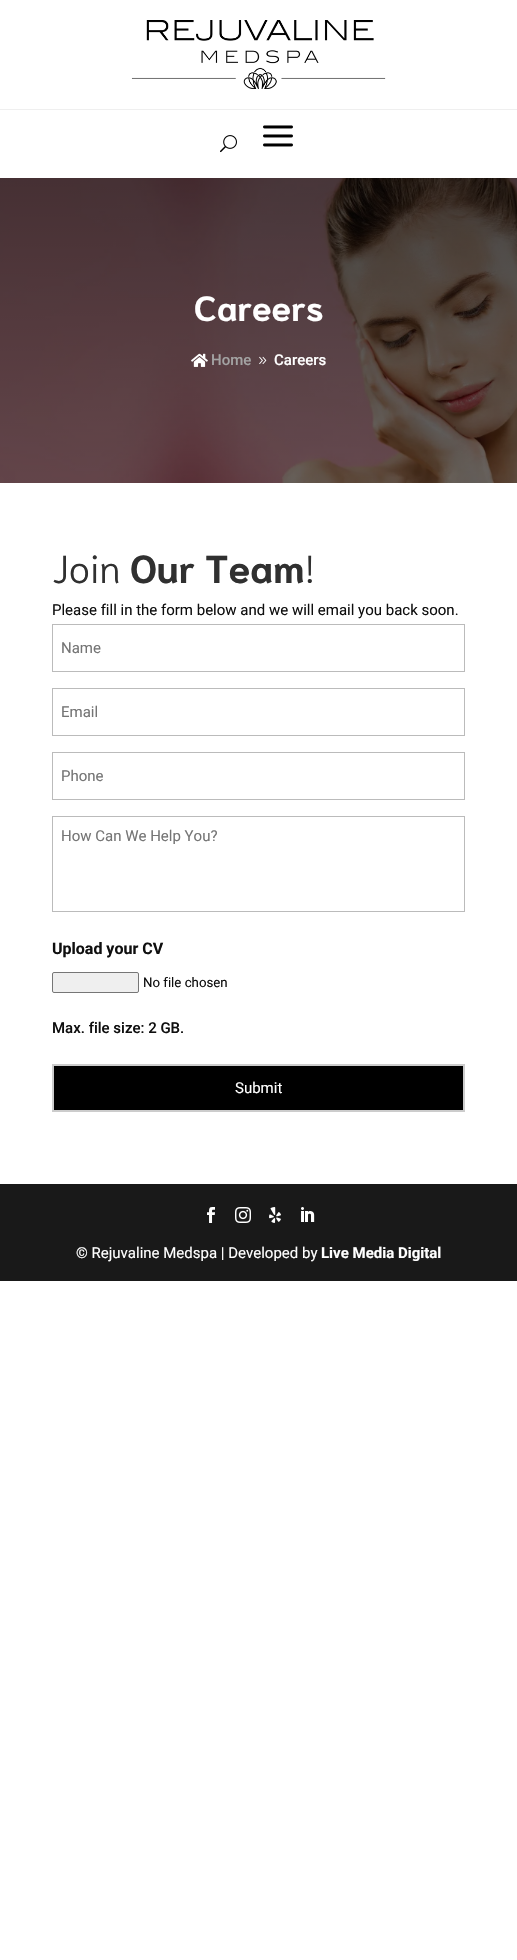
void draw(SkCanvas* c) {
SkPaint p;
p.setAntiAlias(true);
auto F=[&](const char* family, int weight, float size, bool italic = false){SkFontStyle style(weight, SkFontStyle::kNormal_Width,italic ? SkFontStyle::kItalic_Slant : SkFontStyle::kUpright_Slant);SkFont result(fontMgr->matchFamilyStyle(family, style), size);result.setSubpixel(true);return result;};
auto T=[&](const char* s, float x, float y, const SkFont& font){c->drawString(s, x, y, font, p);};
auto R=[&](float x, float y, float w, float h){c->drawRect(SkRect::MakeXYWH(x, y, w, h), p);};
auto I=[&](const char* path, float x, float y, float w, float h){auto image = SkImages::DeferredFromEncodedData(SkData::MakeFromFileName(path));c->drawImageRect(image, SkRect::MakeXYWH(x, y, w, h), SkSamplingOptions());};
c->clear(0xffffffff);
I("1.png",131,20,255,69);
p.setColor(0xffefefef);
R(0,109,517,1);
I("2.png",220,135,17,18);
I("3.png",263,125,30,22);
I("4.png",0,178,517,305);
auto f1 = F("Niramit",700,35);
p.setColor(0xffffffff);
T("Careers",194,321,f1);
I("5.png",191,353,17,14);
auto f2 = F("Roboto",500,15);
p.setColor(0xffa3a3a3);
T("Home",211,365,f2);
I("6.png",259,356,8,8);
p.setColor(0xffffffff);
T("Careers",274,365,f2);
auto f3 = F("Niramit",300,39);
p.setColor(0xff303030);
T("Join",52,583,f3);
auto f4 = F("Niramit",700,39);
T("Our Team",130,583,f4);
T("!",305,583,f3);
auto f5 = F("Roboto",400,15);
p.setColor(0xff0f0f0f);
T("Please fill in the form below and we will email you back soon.",52,615,f5);
p.setStroke(true);
p.setStrokeWidth(1);
p.setColor(0xffbbbbbb);
c->drawRect(SkRect::MakeXYWH(52.5,624.5,412,47),p);
p.setStroke(false);
p.setColor(0xff757575);
T("Name",61,653,f5);
p.setStroke(true);
p.setColor(0xffbbbbbb);
c->drawRect(SkRect::MakeXYWH(52.5,688.5,412,47),p);
p.setStroke(false);
p.setColor(0xff757575);
T("Email",61,717,f5);
p.setStroke(true);
p.setColor(0xffbbbbbb);
c->drawRect(SkRect::MakeXYWH(52.5,752.5,412,47),p);
p.setStroke(false);
p.setColor(0xff757575);
T("Phone",61,781,f5);
p.setStroke(true);
p.setColor(0xffbbbbbb);
c->drawRect(SkRect::MakeXYWH(52.5,816.5,412,95),p);
p.setStroke(false);
p.setColor(0xff757575);
T("How Can We Help You?",61,841,f5);
auto f6 = F("Roboto",700,16);
p.setColor(0xff0f0f0f);
T("Upload your CV",52,954,f6);
p.setColor(0xffefefef);
c->drawRoundRect(SkRect::MakeXYWH(52.5,972.5,86,20),1.5,1.5,p);
p.setStroke(true);
p.setColor(0xff767676);
c->drawRoundRect(SkRect::MakeXYWH(52.5,972.5,86,20),1.5,1.5,p);
auto f7 = F("Roboto",400,13.25);
p.setStroke(false);
p.setColor(0xff0f0f0f);
T("No file chosen",143,987,f7);
T("Max. file size: 2 GB.",52,1033,f2);
p.setColor(0xff000000);
c->drawRect(SkRect::MakeXYWH(53,1065,411,46),p);
p.setStroke(true);
p.setStrokeWidth(2);
p.setColor(0xffcccccc);
c->drawRect(SkRect::MakeXYWH(53,1065,411,46),p);
p.setStroke(false);
p.setColor(0xffffffff);
T("Submit",235,1093,f5);
p.setColor(0xff191919);
R(0,1184,517,97);
I("7.png",207,1207,8,16);
I("8.png",235,1207,16,16);
I("9.png",269,1207,12,16);
I("10.png",301,1207,14,15);
p.setColor(0xffffffff);
T("© Rejuvaline Medspa | Developed by",76,1258,f5);
auto f8 = F("Roboto",700,15);
T("Live Media Digital",321,1258,f8);
}
